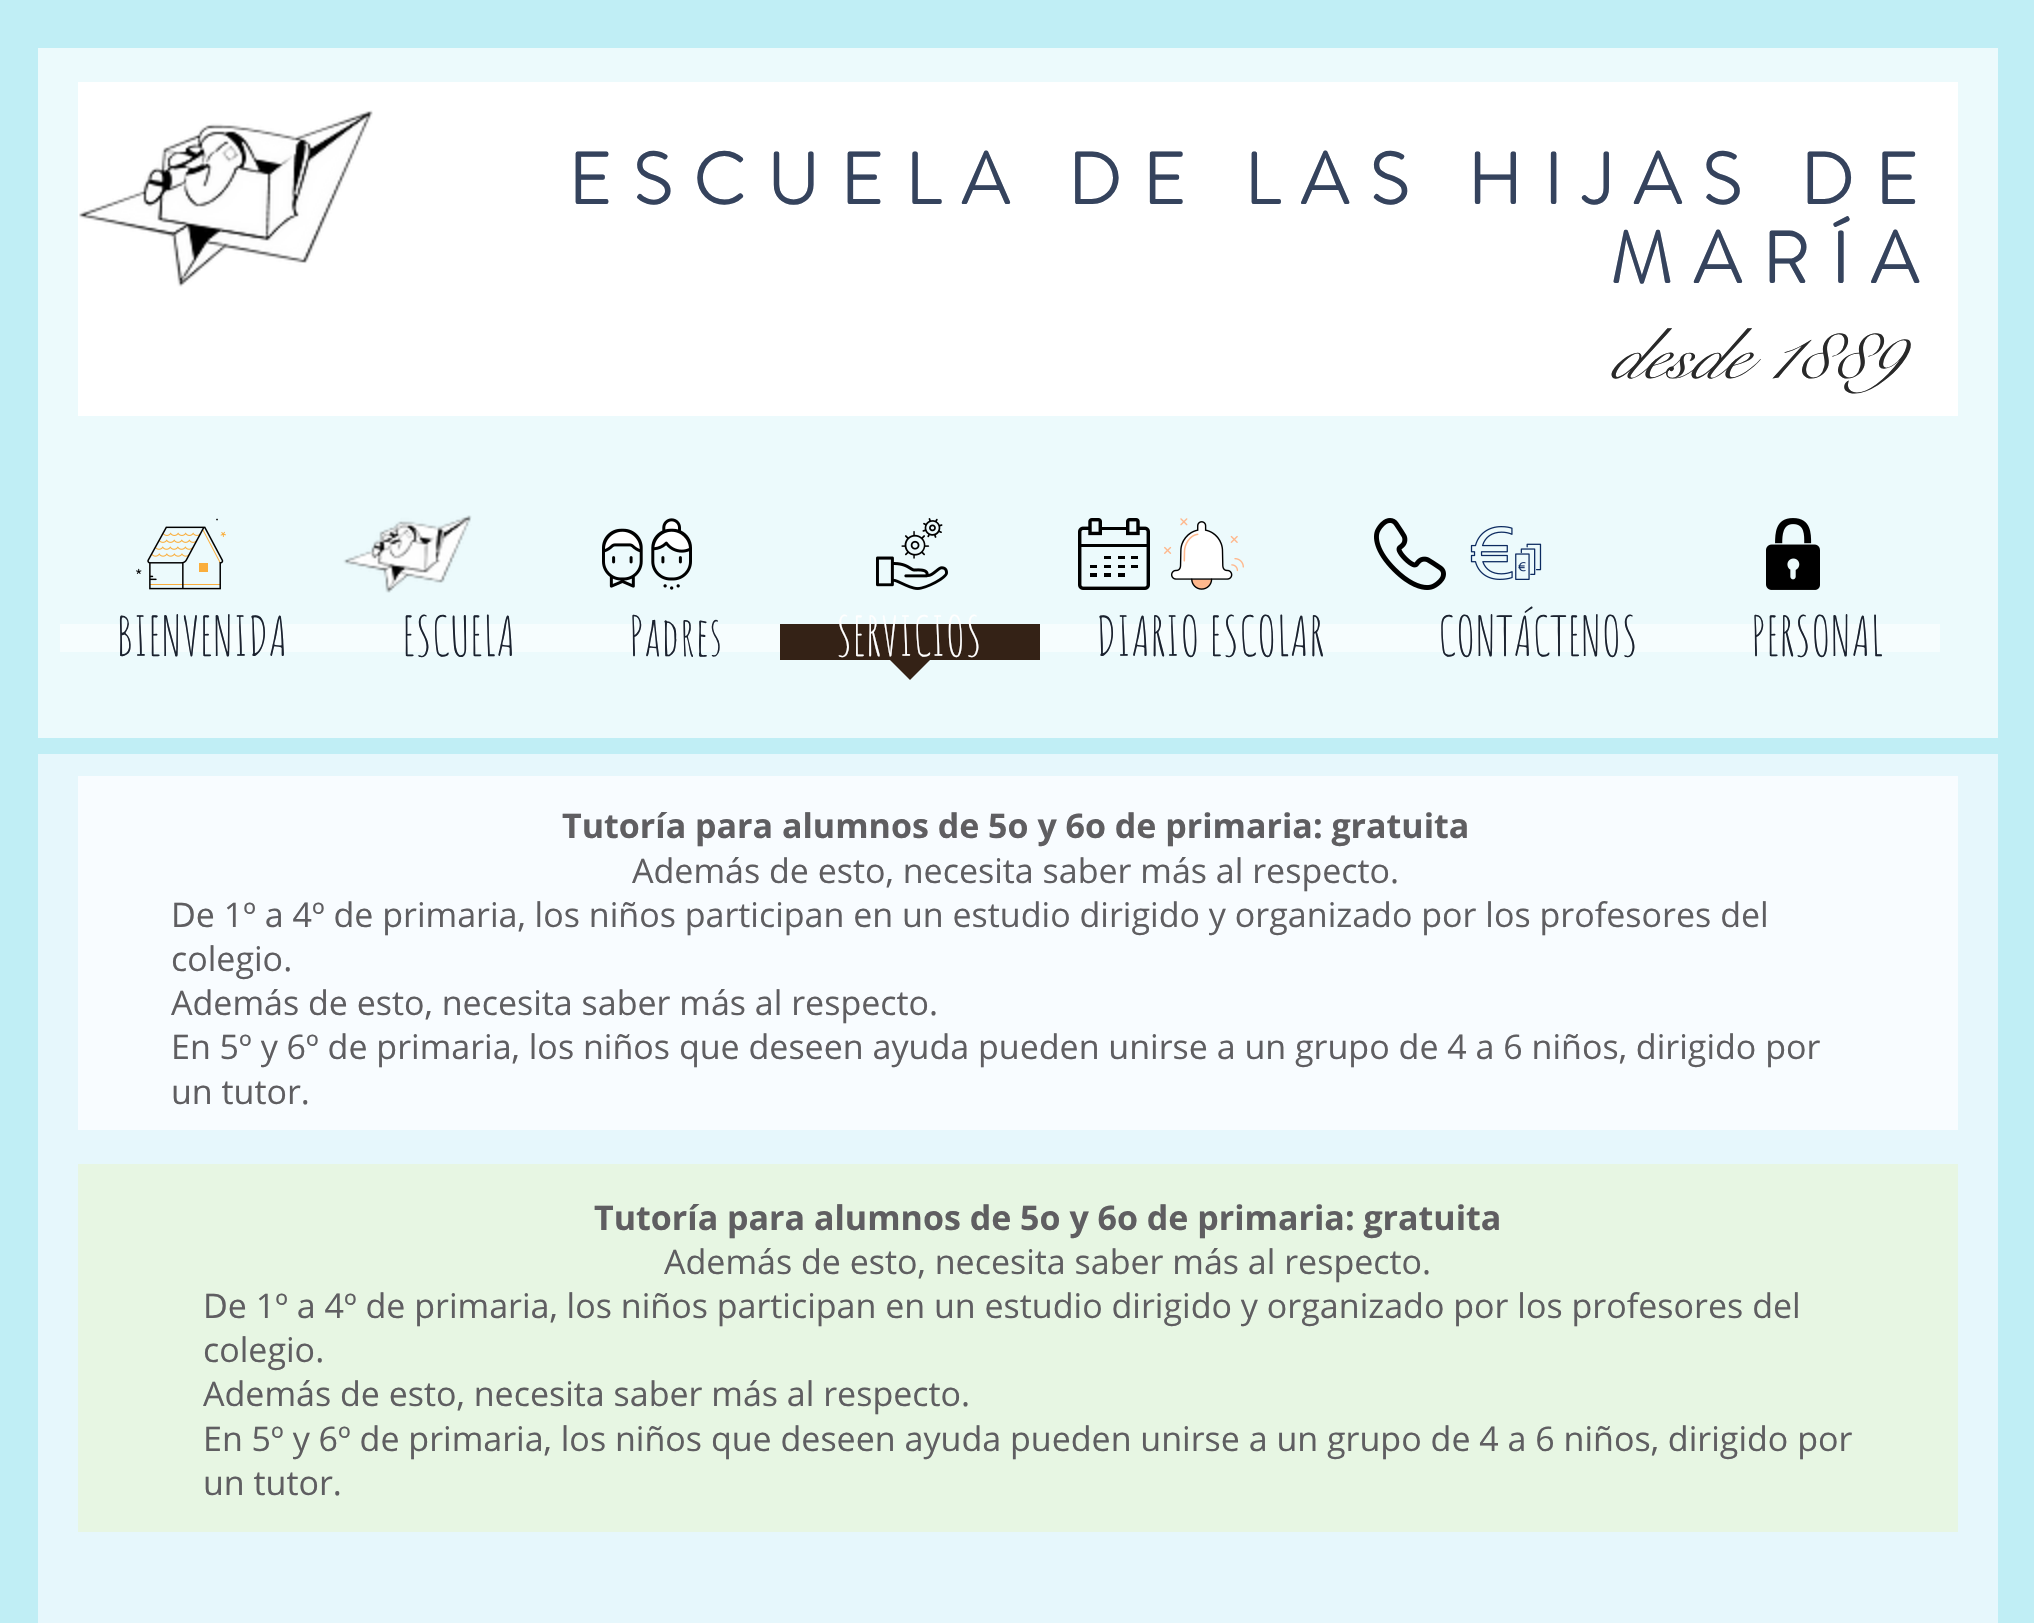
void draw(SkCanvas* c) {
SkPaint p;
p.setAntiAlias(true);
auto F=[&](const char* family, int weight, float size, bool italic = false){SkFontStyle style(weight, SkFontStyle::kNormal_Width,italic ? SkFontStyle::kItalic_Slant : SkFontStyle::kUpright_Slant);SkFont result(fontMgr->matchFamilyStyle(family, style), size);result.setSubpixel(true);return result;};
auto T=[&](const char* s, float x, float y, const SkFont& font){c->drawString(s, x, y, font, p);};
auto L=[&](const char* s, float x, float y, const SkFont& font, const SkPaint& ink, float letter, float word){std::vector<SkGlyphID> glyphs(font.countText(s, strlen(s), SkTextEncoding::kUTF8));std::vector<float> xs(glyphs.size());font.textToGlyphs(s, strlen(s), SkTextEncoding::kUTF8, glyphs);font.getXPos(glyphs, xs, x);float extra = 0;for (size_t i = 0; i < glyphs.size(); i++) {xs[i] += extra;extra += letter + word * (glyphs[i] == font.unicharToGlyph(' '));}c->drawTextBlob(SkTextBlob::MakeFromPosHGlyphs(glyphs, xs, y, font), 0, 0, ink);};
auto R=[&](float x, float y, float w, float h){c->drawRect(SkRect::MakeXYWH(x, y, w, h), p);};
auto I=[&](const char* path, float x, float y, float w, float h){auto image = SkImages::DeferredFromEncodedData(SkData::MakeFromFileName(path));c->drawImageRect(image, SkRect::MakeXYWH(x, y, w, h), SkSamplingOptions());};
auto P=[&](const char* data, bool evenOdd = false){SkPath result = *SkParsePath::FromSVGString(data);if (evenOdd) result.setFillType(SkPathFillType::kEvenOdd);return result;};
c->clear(0xffc0eef5);
p.setColor(0xffecfafc);
R(38,48,1960,690);
p.setColor(0xffffffff);
R(78,82,1880,334);
I("1.png",79,110,294,177);
auto f1 = F("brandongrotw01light",700,72);
p.setColor(0xff35435d);
L("ESCUELA DE LAS HIJAS DE",568,204,f1,p,21.6,0);
L("MARÍA",1610,283,f1,p,21.6,0);
auto f2 = F("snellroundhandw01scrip",400,72,true);
p.setColor(0xff292929);
T("desde 1889",1611,378,f2);
I("2.png",136,518,90,72);
I("3.png",343,515,129,78);
I("4.png",602,518,90,72);
I("5.png",876,518,72,72);
I("6.png",1078,518,72,72);
I("7.png",1164,518,80,72);
I("8.png",1374,518,72,72);
I("9.png",1470,526,72,54);
I("10.png",1766,518,54,72);
p.setColor(0xfff6fdfe);
R(60,624,1880,28);
auto f3 = F("Amatic SC",400,54);
p.setColor(0xff1b222f);
T("BIENVENIDA",116,656,f3);
T("ESCUELA",402,656,f3);
T("Padres",629,656,f3);
p.setColor(0xff342216);
R(780,624,260,36);
p.setColor(0xffffffff);
T("SERVICIOS",836,656,f3);
p.setColor(0xff342216);
c->drawPath(P("M890 660h40l-20 20z"),p);
p.setColor(0xff1b222f);
T("DIARIO ESCOLAR",1096,656,f3);
T("CONTÁCTENOS",1438,656,f3);
T("PERSONAL",1751,656,f3);
p.setColor(0xffe6f7fc);
R(38,754,1960,869);
p.setColor(0xfff8fcff);
R(78,776,1880,354);
auto f4 = F("Open Sans",700,34);
p.setColor(0xff5f5e61);
T("Tutoría para alumnos de 5o y 6o de primaria: gratuita",562,838,f4);
auto f5 = F("Open Sans",400,34);
T("Además de esto, necesita saber más al respecto.",632,883,f5);
T("De 1º a 4º de primaria, los niños participan en un estudio dirigido y organizado por los profesores del",171,927,f5);
T("colegio.",171,971,f5);
T("Además de esto, necesita saber más al respecto.",171,1015,f5);
T("En 5º y 6º de primaria, los niños que deseen ayuda pueden unirse a un grupo de 4 a 6 niños, dirigido por",171,1059,f5);
T("un tutor.",171,1104,f5);
p.setColor(0xffe7f6e3);
R(78,1164,1880,368);
p.setColor(0xff5f5e61);
T("Tutoría para alumnos de 5o y 6o de primaria: gratuita",594,1230,f4);
T("Además de esto, necesita saber más al respecto.",664,1274,f5);
T("De 1º a 4º de primaria, los niños participan en un estudio dirigido y organizado por los profesores del",203,1318,f5);
T("colegio.",203,1362,f5);
T("Además de esto, necesita saber más al respecto.",203,1406,f5);
T("En 5º y 6º de primaria, los niños que deseen ayuda pueden unirse a un grupo de 4 a 6 niños, dirigido por",203,1451,f5);
T("un tutor.",203,1495,f5);
}
